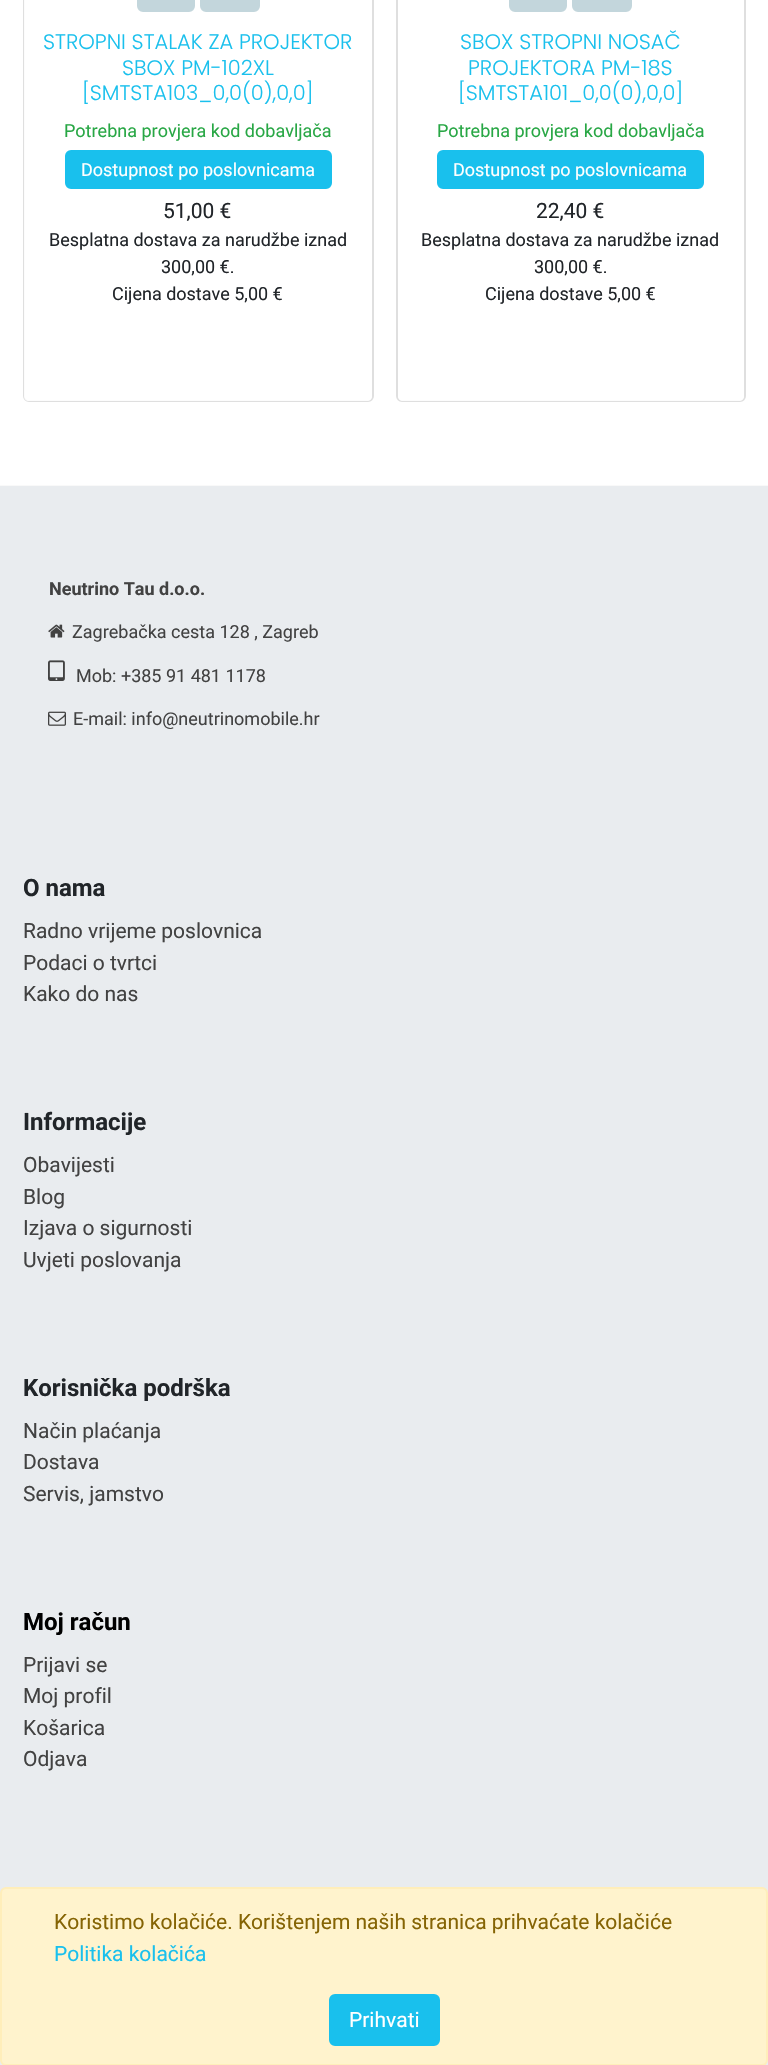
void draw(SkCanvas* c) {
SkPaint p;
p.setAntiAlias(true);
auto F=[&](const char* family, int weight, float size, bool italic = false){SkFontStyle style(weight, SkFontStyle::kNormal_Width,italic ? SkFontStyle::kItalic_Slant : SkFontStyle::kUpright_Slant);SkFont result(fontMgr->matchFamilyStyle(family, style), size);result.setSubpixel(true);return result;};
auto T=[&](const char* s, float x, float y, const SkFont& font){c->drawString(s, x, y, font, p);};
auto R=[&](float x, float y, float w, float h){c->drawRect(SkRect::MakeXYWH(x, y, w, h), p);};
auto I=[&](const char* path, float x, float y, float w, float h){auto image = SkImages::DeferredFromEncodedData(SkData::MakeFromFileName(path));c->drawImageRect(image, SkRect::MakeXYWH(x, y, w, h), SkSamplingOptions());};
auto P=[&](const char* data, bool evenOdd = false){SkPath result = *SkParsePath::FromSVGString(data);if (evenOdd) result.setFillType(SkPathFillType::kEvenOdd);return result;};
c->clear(0xffffffff);
p.setStroke(true);
p.setStrokeWidth(2);
p.setColor(0xffdfdfdf);
c->drawRoundRect(SkRect::MakeXYWH(24,-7,349,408),5,5,p);
p.setStroke(false);
p.setColor(0xe6ffffff);
R(24,0,1,18);
c->drawPath(P("M24 18h348v378c0 3-2 5-5 5h-338c-3 0-5-2-5-5z"),p);
p.setColor(0xffc3d6dc);
c->drawRoundRect(SkRect::MakeXYWH(138,-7,56,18),5,5,p);
p.setStroke(true);
c->drawRoundRect(SkRect::MakeXYWH(138,-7,56,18),5,5,p);
p.setStroke(false);
c->drawRoundRect(SkRect::MakeXYWH(201,-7,58,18),5,5,p);
p.setStroke(true);
c->drawRoundRect(SkRect::MakeXYWH(201,-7,58,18),5,5,p);
auto f1 = F("Poppins",300,21);
p.setStroke(false);
p.setColor(0xff19c0ed);
T("STROPNI STALAK ZA PROJEKTOR",43,49,f1);
T("SBOX PM-102XL",122,75,f1);
T("[SMTSTA103_0,0(0),0,0]",82,100,f1);
auto f2 = F("Roboto",400,18);
p.setColor(0xff28a745);
T("Potrebna provjera kod dobavljača",64,137,f2);
p.setColor(0xff19c0ed);
c->drawRoundRect(SkRect::MakeXYWH(66,151,265,37),5,5,p);
p.setStroke(true);
c->drawRoundRect(SkRect::MakeXYWH(66,151,265,37),5,5,p);
p.setStroke(false);
p.setColor(0xffffffff);
T("Dostupnost po poslovnicama",81,176,f2);
auto f3 = F("Roboto",400,21);
p.setColor(0xff212529);
T("51,00 €",163,218,f3);
T("Besplatna dostava za narudžbe iznad",49,246,f2);
T("300,00 €.",161,273,f2);
T("Cijena dostave 5,00 €",112,300,f2);
p.setStroke(true);
p.setColor(0xffdfdfdf);
c->drawRoundRect(SkRect::MakeXYWH(397,-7,348,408),5,5,p);
p.setStroke(false);
p.setColor(0xe6ffffff);
c->drawPath(P("M398 18h346v378c0 3-2 5-5 5h-336c-3 0-5-2-5-5z"),p);
p.setColor(0xffc3d6dc);
c->drawRoundRect(SkRect::MakeXYWH(510,-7,56,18),5,5,p);
p.setStroke(true);
c->drawRoundRect(SkRect::MakeXYWH(510,-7,56,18),5,5,p);
p.setStroke(false);
c->drawRoundRect(SkRect::MakeXYWH(573,-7,58,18),5,5,p);
p.setStroke(true);
c->drawRoundRect(SkRect::MakeXYWH(573,-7,58,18),5,5,p);
p.setStroke(false);
p.setColor(0xff19c0ed);
T("SBOX STROPNI NOSAČ",460,49,f1);
T("PROJEKTORA PM-18S",468,75,f1);
T("[SMTSTA101_0,0(0),0,0]",458,100,f1);
p.setColor(0xff28a745);
T("Potrebna provjera kod dobavljača",437,137,f2);
p.setColor(0xff19c0ed);
c->drawRoundRect(SkRect::MakeXYWH(438,151,265,37),5,5,p);
p.setStroke(true);
c->drawRoundRect(SkRect::MakeXYWH(438,151,265,37),5,5,p);
p.setStroke(false);
p.setColor(0xffffffff);
T("Dostupnost po poslovnicama",453,176,f2);
p.setColor(0xff212529);
T("22,40 €",536,218,f3);
T("Besplatna dostava za narudžbe iznad",421,246,f2);
T("300,00 €.",534,273,f2);
T("Cijena dostave 5,00 €",485,300,f2);
p.setColor(0xfff9f9f9);
R(0,485,768,1);
p.setColor(0xffe9ecef);
R(0,486,768,1579);
auto f4 = F("Roboto",700,18);
p.setColor(0xff424242);
T("Neutrino Tau d.o.o.",49,595,f4);
I("1.png",48,624,17,14);
T("Zagrebačka cesta 128 , Zagreb",72,638,f2);
I("2.png",48,660,17,21);
T("Mob: +385 91 481 1178",76,682,f2);
I("3.png",48,711,18,15);
T("E-mail: info@neutrinomobile.hr",73,725,f2);
auto f5 = F("Roboto",700,24);
p.setColor(0xff212529);
T("O nama",23,896,f5);
p.setColor(0xff424242);
T("Radno vrijeme poslovnica",23,938,f3);
T("Podaci o tvrtci",23,970,f3);
T("Kako do nas",23,1001,f3);
p.setColor(0xff212529);
T("Informacije",23,1130,f5);
p.setColor(0xff424242);
T("Obavijesti",23,1172,f3);
T("Blog",23,1204,f3);
T("Izjava o sigurnosti",23,1235,f3);
T("Uvjeti poslovanja",23,1267,f3);
p.setColor(0xff212529);
T("Korisnička podrška",23,1396,f5);
p.setColor(0xff424242);
T("Način plaćanja",23,1438,f3);
T("Dostava",23,1469,f3);
T("Servis, jamstvo",23,1501,f3);
p.setColor(0xff000000);
T("Moj račun",23,1630,f5);
p.setColor(0xff424242);
T("Prijavi se",23,1672,f3);
T("Moj profil",23,1703,f3);
T("Košarica",23,1735,f3);
T("Odjava",23,1766,f3);
p.setColor(0xfffff3cd);
c->drawRoundRect(SkRect::MakeXYWH(1,1888,766,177),5,5,p);
p.setStroke(true);
p.setColor(0xffffeeba);
c->drawRoundRect(SkRect::MakeXYWH(1,1888,766,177),5,5,p);
p.setStroke(false);
p.setColor(0xff856404);
T("Koristimo kolačiće. Korištenjem naših stranica prihvaćate kolačiće",54,1929,f3);
p.setColor(0xff19c0ed);
T("Politika kolačića",54,1961,f3);
c->drawRoundRect(SkRect::MakeXYWH(330,1995,109,50),5,5,p);
p.setStroke(true);
c->drawRoundRect(SkRect::MakeXYWH(330,1995,109,50),5,5,p);
p.setStroke(false);
p.setColor(0xffffffff);
T("Prihvati",349,2027,f3);
}
